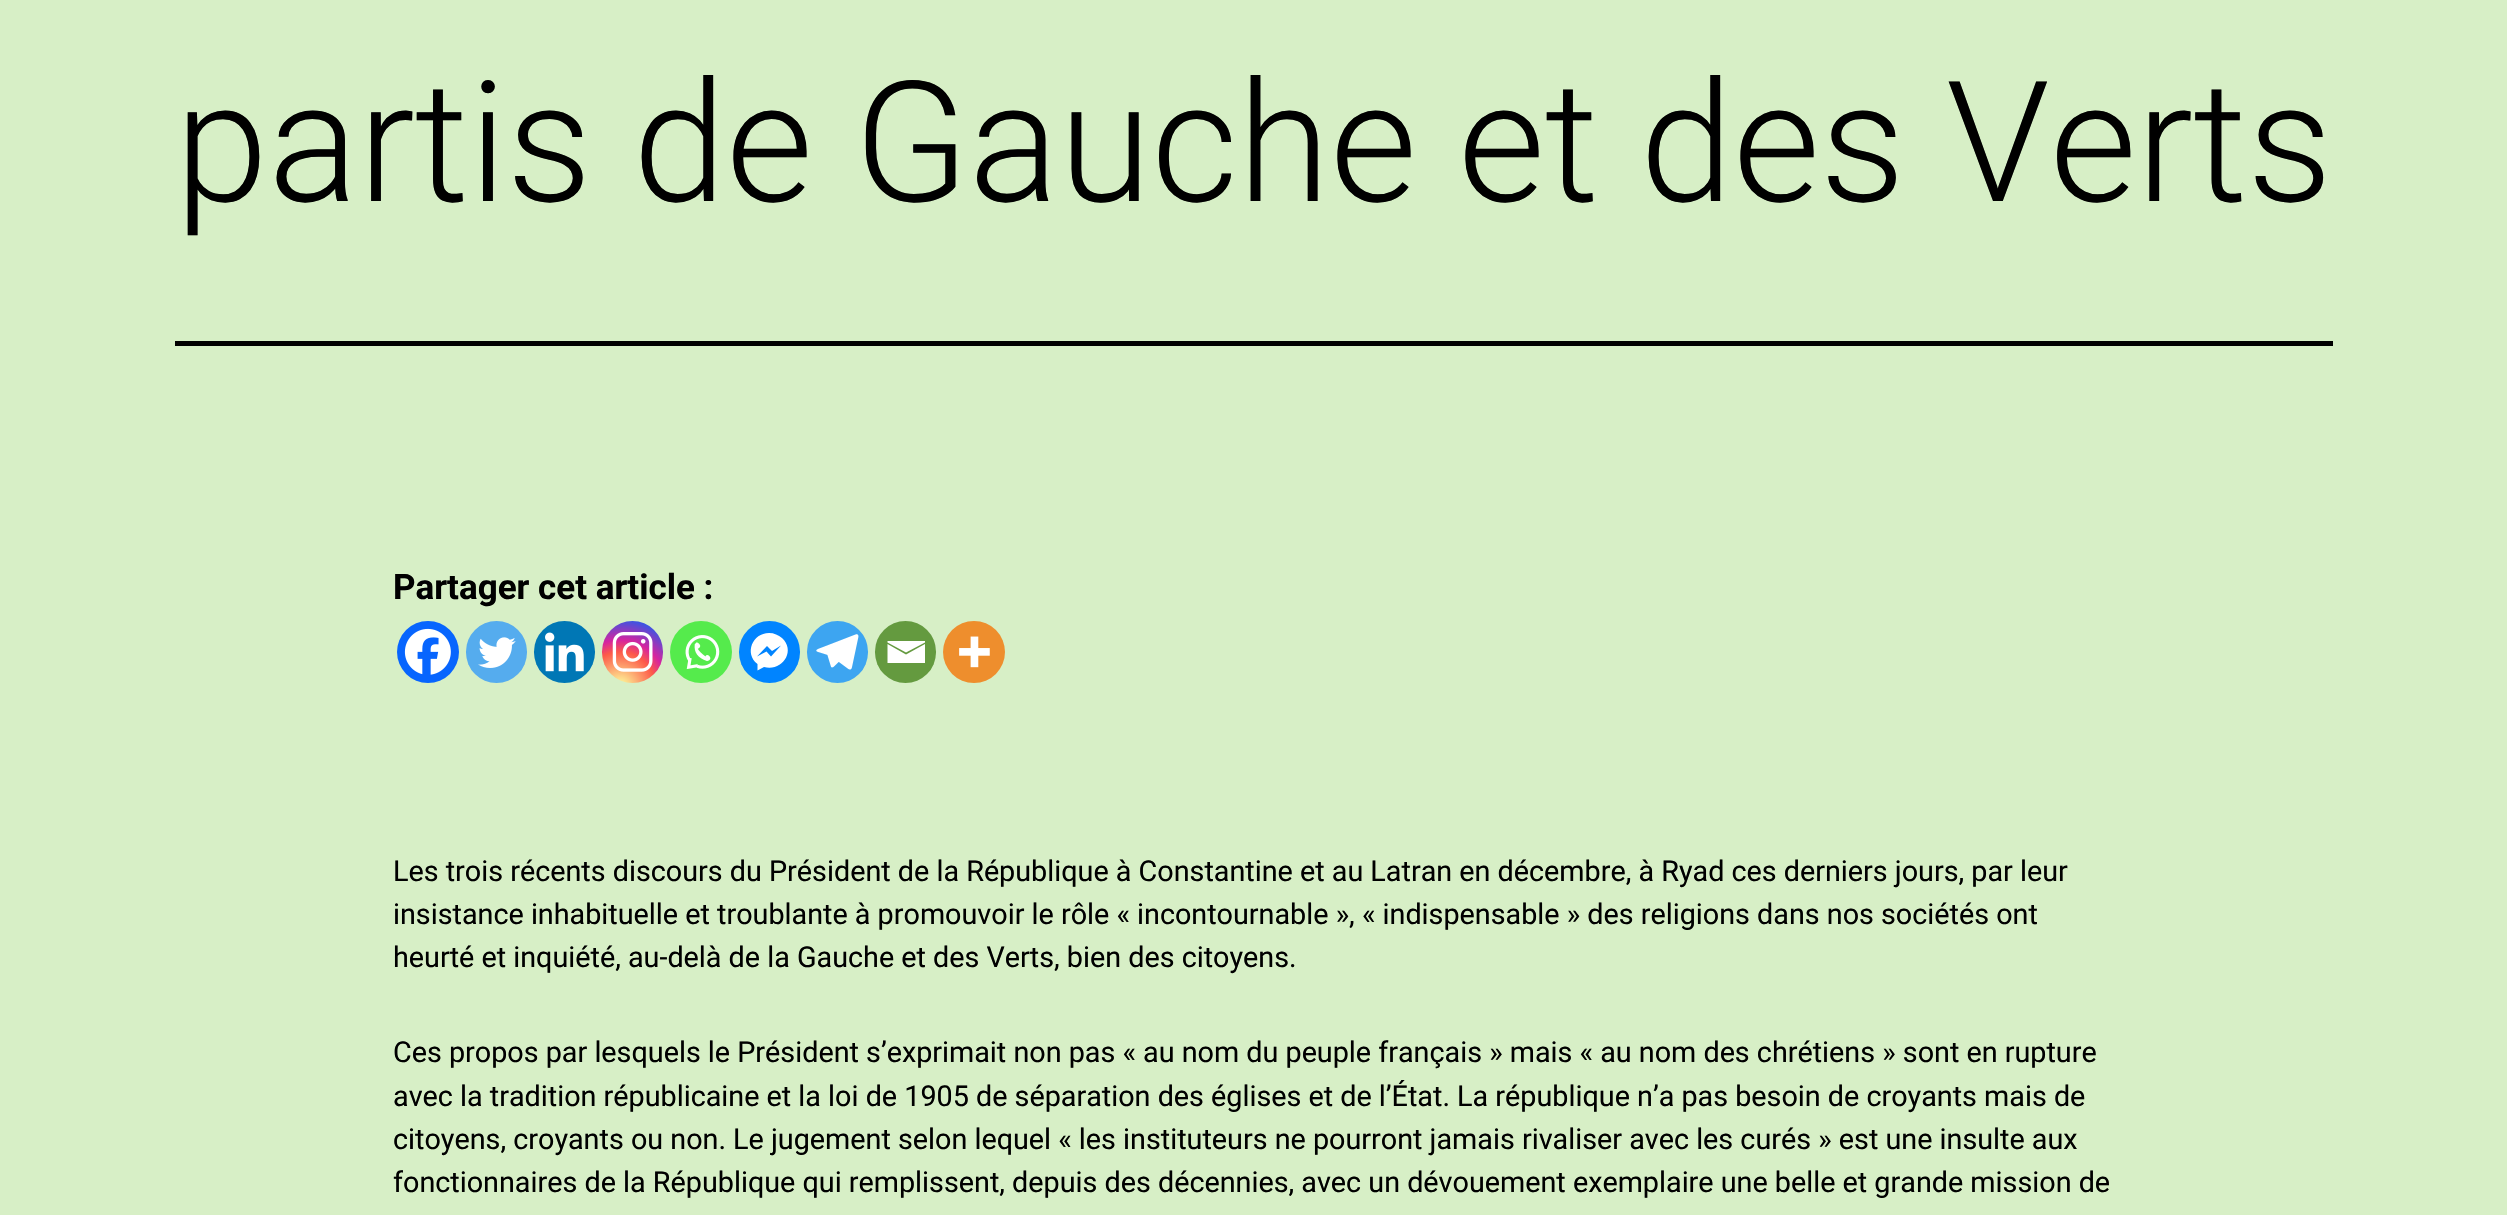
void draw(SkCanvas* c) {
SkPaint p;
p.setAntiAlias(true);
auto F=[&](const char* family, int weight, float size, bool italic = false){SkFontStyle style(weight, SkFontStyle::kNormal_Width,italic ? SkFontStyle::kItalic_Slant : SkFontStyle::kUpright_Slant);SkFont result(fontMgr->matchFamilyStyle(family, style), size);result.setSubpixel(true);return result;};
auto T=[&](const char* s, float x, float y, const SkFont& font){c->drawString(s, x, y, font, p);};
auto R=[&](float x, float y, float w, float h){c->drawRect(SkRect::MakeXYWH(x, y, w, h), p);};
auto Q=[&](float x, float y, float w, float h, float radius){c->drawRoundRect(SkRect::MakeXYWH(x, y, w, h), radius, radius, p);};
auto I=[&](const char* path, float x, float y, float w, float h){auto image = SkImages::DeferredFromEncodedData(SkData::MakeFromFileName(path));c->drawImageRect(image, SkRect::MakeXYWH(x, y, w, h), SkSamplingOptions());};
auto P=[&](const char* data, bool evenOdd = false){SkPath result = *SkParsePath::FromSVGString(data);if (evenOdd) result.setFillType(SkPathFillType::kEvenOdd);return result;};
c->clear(0xffd7efc6);
p.setColor(0xff000000);
R(175,341,2158,5);
auto f1 = F("Roboto",300,168);
T("partis de Gauche et des Verts",175,201,f1);
auto f2 = F("Roboto",700,35);
T("Partager cet article :",393,599,f2);
p.setColor(0xff0765fe);
c->drawCircle(428,652,31,p);
I("1.png",404,628,47,47);
p.setColor(0xff55acee);
Q(466,621,61,62,30.5);
I("2.png",478,637,38,31);
p.setColor(0xff0077b5);
Q(534,621,61,62,30.5);
I("3.png",545,632,39,40);
{
const SkColor colors[] = {0xfffdf497,0xfffdf497,0xfffd5949,0xffd6249f,0xff285aeb};
const float stops[] = {0,.05,.45,.6,.9};
p.setShader(SkGradientShader::MakeRadial({620,687}, 78, colors, stops, 5, SkTileMode::kClamp));
p.setAlpha(255);
}
Q(602,621,61,62,30.5);
I("4.png",612,632,41,40);
p.setShader(nullptr);
p.setColor(0xff55eb4c);
c->drawCircle(701,652,31,p);
I("5.png",685,635,35,34);
p.setColor(0xff0084ff);
Q(739,621,61,62,30.5);
p.setColor(0xffffffff);
c->drawPath(P("M769 633c-16.5 0-25 20.5-11.5 31v6.5l6.5-3.5c17.5 5 32.5-15.5 18-29c-3.5-3-8-5-13-5zm2 23.5l-4.5-5l-9.5 5l10-10.5l5 5l9-5.5z"),p);
p.setColor(0xff3da5f1);
Q(807,621,61,62,30.5);
I("6.png",816,634,43,36);
p.setColor(0xff649a3f);
Q(875,621,61,62,30.5);
p.setColor(0xffffffff);
c->drawPath(P("M885.5 641h39.5v1.5l-19 10l-18.5-10v-1.5m0 3l18.5 10.5l19-10.5v19h-37.5v-19"),p);
p.setColor(0xffee8e2d);
c->drawCircle(974,652,31,p);
I("7.png",959,636,31,32);
auto f3 = F("Roboto",400,28.75);
p.setColor(0xff000000);
T("Les trois récents discours du Président de la République à Constantine et au Latran en décembre, à Ryad ces derniers jours, par leur",393,881,f3);
T("insistance inhabituelle et troublante à promouvoir le rôle « incontournable », « indispensable » des religions dans nos sociétés ont",393,924,f3);
T("heurté et inquiété, au-delà de la Gauche et des Verts, bien des citoyens.",393,967,f3);
T("Ces propos par lesquels le Président s’exprimait non pas « au nom du peuple français » mais « au nom des chrétiens » sont en rupture",393,1062,f3);
T("avec la tradition républicaine et la loi de 1905 de séparation des églises et de l’État. La république n’a pas besoin de croyants mais de",393,1106,f3);
T("citoyens, croyants ou non. Le jugement selon lequel « les instituteurs ne pourront jamais rivaliser avec les curés » est une insulte aux",393,1149,f3);
T("fonctionnaires de la République qui remplissent, depuis des décennies, avec un dévouement exemplaire une belle et grande mission de",393,1192,f3);
}
